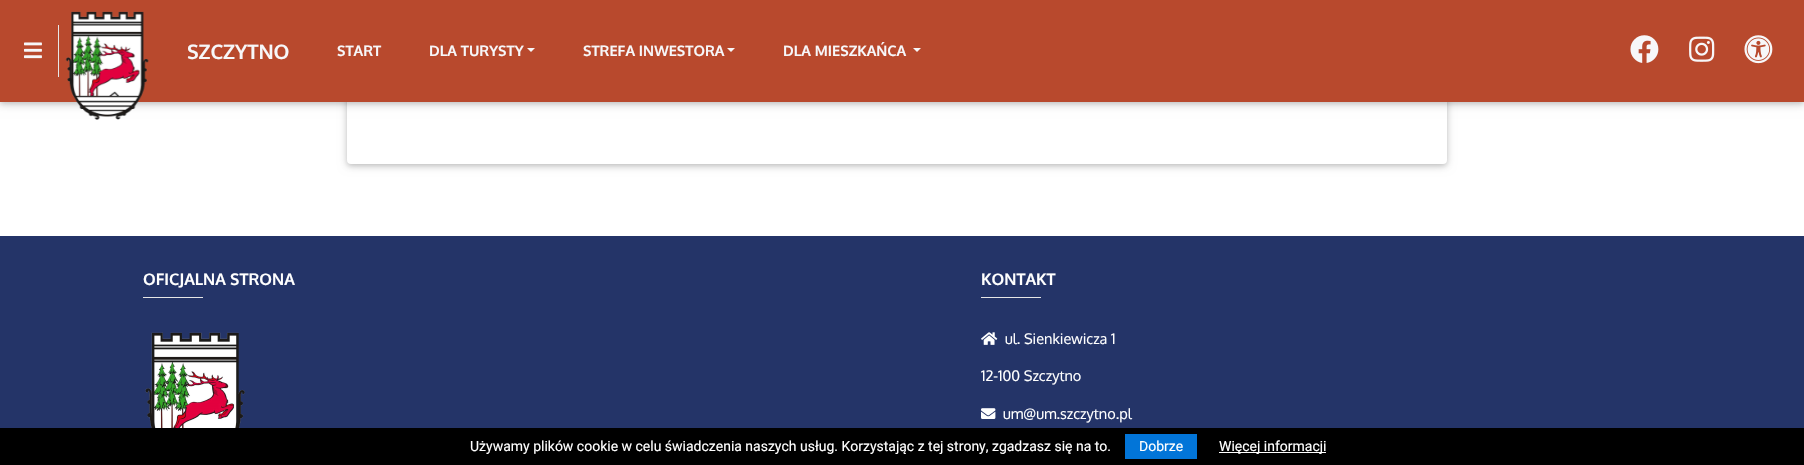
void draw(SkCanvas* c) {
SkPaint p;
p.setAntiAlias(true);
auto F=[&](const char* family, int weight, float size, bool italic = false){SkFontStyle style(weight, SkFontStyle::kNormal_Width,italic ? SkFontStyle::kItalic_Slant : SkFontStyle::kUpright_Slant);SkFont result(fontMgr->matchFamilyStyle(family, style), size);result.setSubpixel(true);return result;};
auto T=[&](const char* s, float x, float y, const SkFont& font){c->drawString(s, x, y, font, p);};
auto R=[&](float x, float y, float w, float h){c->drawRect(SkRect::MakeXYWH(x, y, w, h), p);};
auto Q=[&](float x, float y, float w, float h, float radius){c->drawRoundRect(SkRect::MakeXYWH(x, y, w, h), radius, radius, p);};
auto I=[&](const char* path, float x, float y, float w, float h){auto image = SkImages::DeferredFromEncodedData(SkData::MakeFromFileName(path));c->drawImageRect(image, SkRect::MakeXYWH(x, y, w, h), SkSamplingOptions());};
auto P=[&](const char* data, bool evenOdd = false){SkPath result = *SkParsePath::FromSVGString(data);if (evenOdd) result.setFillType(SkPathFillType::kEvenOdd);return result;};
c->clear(0xffffffff);
p.setColor(0x1f000000);
p.setMaskFilter(SkMaskFilter::MakeBlur(kNormal_SkBlurStyle, 5));
c->drawRoundRect(SkRect::MakeXYWH(347,-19,1100,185),4,4,p);
p.setMaskFilter(nullptr);
p.setColor(0x29000000);
p.setMaskFilter(SkMaskFilter::MakeBlur(kNormal_SkBlurStyle, 2.5));
c->drawRoundRect(SkRect::MakeXYWH(347,-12,1100,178),4,4,p);
p.setMaskFilter(nullptr);
p.setColor(0xffffffff);
Q(347,-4,1100,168,4);
p.setColor(0x1f000000);
p.setMaskFilter(SkMaskFilter::MakeBlur(kNormal_SkBlurStyle, 5));
c->drawRect(SkRect::MakeXYWH(0,2,1804,102),p);
p.setMaskFilter(nullptr);
p.setColor(0x29000000);
p.setMaskFilter(SkMaskFilter::MakeBlur(kNormal_SkBlurStyle, 2.5));
c->drawRect(SkRect::MakeXYWH(0,2,1804,102),p);
p.setMaskFilter(nullptr);
p.setColor(0xffb8492d);
R(0,0,1804,102);
p.setColor(0xffe7e7e7);
R(58,25,1,52);
I("1.png",24,42,18,17);
I("2.png",65,11,84,109);
auto f1 = F("Oxygen",700,20);
p.setColor(0xfff7f7f9);
T("SZCZYTNO",187,59,f1);
auto f2 = F("Oxygen",700,14.5);
T("START",337,56,f2);
T("DLA TURYSTY",429,56,f2);
c->drawPath(P("M527 48h8l-4 4z"),p);
T("STREFA INWESTORA",583,56,f2);
c->drawPath(P("M727 48h8l-4 4z"),p);
T("DLA MIESZKAŃCA",783,56,f2);
c->drawPath(P("M913 48h8l-4 4z"),p);
I("3.png",1630,35,29,28);
I("4.png",1689,36,26,26);
I("5.png",1744,35,29,29);
p.setColor(0xff243468);
R(0,236,1804,192);
auto f3 = F("Oxygen",700,16);
p.setColor(0xffffffff);
T("OFICJALNA STRONA",143,285,f3);
p.setColor(0xffe6e6e6);
R(143,297,60,1);
I("6.png",145,332,100,96);
p.setColor(0xffffffff);
T("KONTAKT",981,285,f3);
p.setColor(0xffe6e6e6);
R(981,297,60,1);
I("7.png",981,332,17,13);
auto f4 = F("Oxygen",400,14.5);
p.setColor(0xffffffff);
T("ul. Sienkiewicza 1",1005,344,f4);
T("12-100 Szczytno",981,381,f4);
I("8.png",981,408,15,11);
T("um@um.szczytno.pl",1003,419,f4);
p.setColor(0xff000000);
R(0,428,1804,37);
auto f5 = F("Roboto",400,14);
p.setColor(0xffffffff);
T("Używamy plików cookie w celu świadczenia naszych usług. Korzystając z tej strony, zgadzasz się na to.",470,451,f5);
p.setColor(0xff0275d8);
R(1125,434,72,25);
p.setColor(0xffffffff);
T("Dobrze",1139,451,f5);
R(1219,452,107,1);
T("Więcej informacji",1219,451,f5);
}
